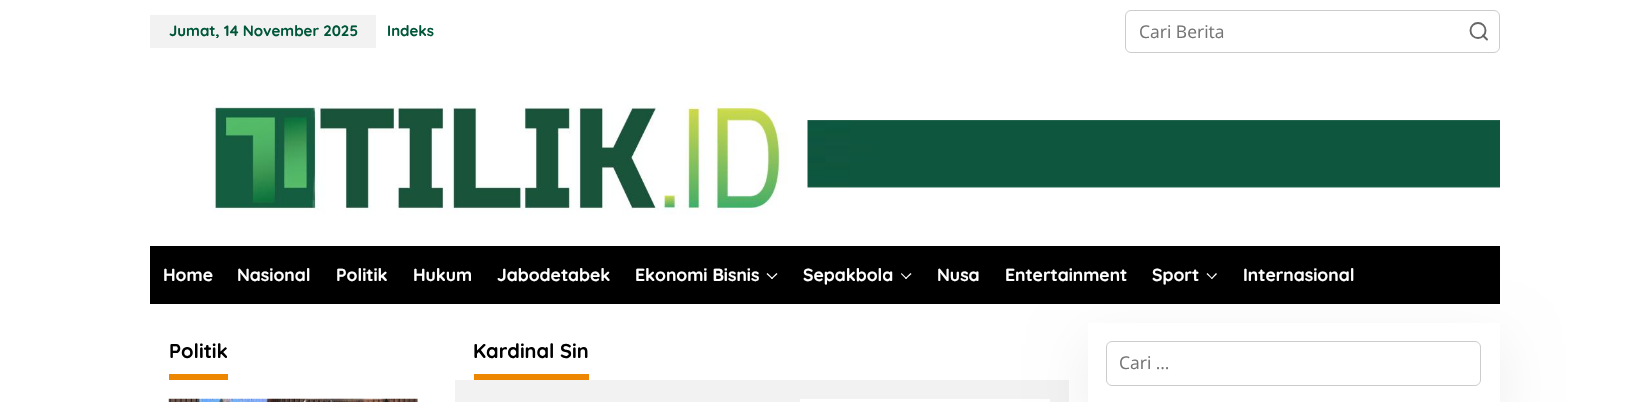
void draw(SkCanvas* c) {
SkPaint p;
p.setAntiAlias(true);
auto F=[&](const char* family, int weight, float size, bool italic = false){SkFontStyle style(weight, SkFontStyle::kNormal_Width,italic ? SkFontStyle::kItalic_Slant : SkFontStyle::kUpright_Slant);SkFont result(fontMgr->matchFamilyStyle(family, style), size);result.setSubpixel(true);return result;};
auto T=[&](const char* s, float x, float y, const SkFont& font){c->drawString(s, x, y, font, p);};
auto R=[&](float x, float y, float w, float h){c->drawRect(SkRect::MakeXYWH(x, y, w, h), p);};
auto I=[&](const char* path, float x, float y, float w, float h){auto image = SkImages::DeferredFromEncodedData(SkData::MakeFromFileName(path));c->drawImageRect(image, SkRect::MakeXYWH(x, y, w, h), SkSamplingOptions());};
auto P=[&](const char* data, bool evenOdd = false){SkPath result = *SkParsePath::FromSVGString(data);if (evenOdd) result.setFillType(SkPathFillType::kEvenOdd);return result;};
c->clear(0xffffffff);
p.setColor(0xfff2f2f2);
R(150,15,226,33);
auto f1 = F("Quicksand",700,15);
p.setColor(0xff005639);
T("Jumat, 14 November 2025",169,36,f1);
T("Indeks",387,36,f1);
p.setStroke(true);
p.setStrokeWidth(1);
p.setColor(0xffcccccc);
c->drawRoundRect(SkRect::MakeXYWH(1125.5,10.5,374,42),5.5,5.5,p);
auto f2 = F("Open Sans",400,17.5);
p.setStroke(false);
p.setColor(0xff757575);
T("Cari Berita",1139,38,f2);
p.setStroke(true);
p.setStrokeWidth(1.9);
p.setColor(0xff666666);
c->drawCircle(1478,30.5,7.5,p);
p.setStrokeCap(SkPaint::kRound_Cap);
p.setStrokeJoin(SkPaint::kRound_Join);
c->drawPath(P("M1487 39.5l-4-4"),p);
I("1.png",212,102,575,113);
I("2.png",807,120,693,68);
p.setStroke(false);
p.setColor(0xff000000);
R(150,246,1350,58);
auto f3 = F("Quicksand",700,17.5);
p.setColor(0xffffffff);
T("Home",163,281,f3);
T("Nasional",237,281,f3);
T("Politik",336,281,f3);
T("Hukum",413,281,f3);
T("Jabodetabek",497,281,f3);
T("Ekonomi Bisnis",635,281,f3);
c->drawPath(P("M776.5 273l1 1l-5.5 5l-1-.5z"),p);
c->drawPath(P("M767.5 273l5.5 5.5l-1 .5l-5.5-5z"),p);
T("Sepakbola",803,281,f3);
c->drawPath(P("M910.5 273l1 1l-5.5 5l-1-.5z"),p);
c->drawPath(P("M901.5 273l5.5 5.5l-1 .5l-5-5z"),p);
T("Nusa",937,281,f3);
T("Entertainment",1005,281,f3);
T("Sport",1152,281,f3);
c->drawPath(P("M1216 273l1 1l-5 5l-1-.5z"),p);
c->drawPath(P("M1207.5 273l5 5.5l-.5 .5l-5.5-5z"),p);
T("Internasional",1243,281,f3);
p.setColor(0xffed8600);
R(169,374,59,6);
auto f4 = F("Quicksand",700,20);
p.setColor(0xff000000);
T("Politik",169,358,f4);
I("3.png",168,398,250,4);
p.setColor(0xffed8600);
R(474,374,115,6);
p.setColor(0xff000000);
T("Kardinal Sin",473,358,f4);
p.setColor(0xfff2f2f2);
R(455,380,614,22);
p.setColor(0xffffffff);
R(800,399,250,3);
p.setColor(0x12000000);
p.setMaskFilter(SkMaskFilter::MakeBlur(kNormal_SkBlurStyle, 28));
c->drawRect(SkRect::MakeXYWH(1088,343,412,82),p);
p.setMaskFilter(nullptr);
p.setColor(0xffffffff);
R(1088,323,412,79);
p.setStroke(true);
p.setStrokeWidth(1);
p.setStrokeCap(SkPaint::kButt_Cap);
p.setStrokeJoin(SkPaint::kMiter_Join);
p.setColor(0xffcccccc);
c->drawRoundRect(SkRect::MakeXYWH(1106.5,341.5,374,44),5.5,5.5,p);
p.setStroke(false);
p.setColor(0xff757575);
T("Cari …",1119,369,f2);
}
